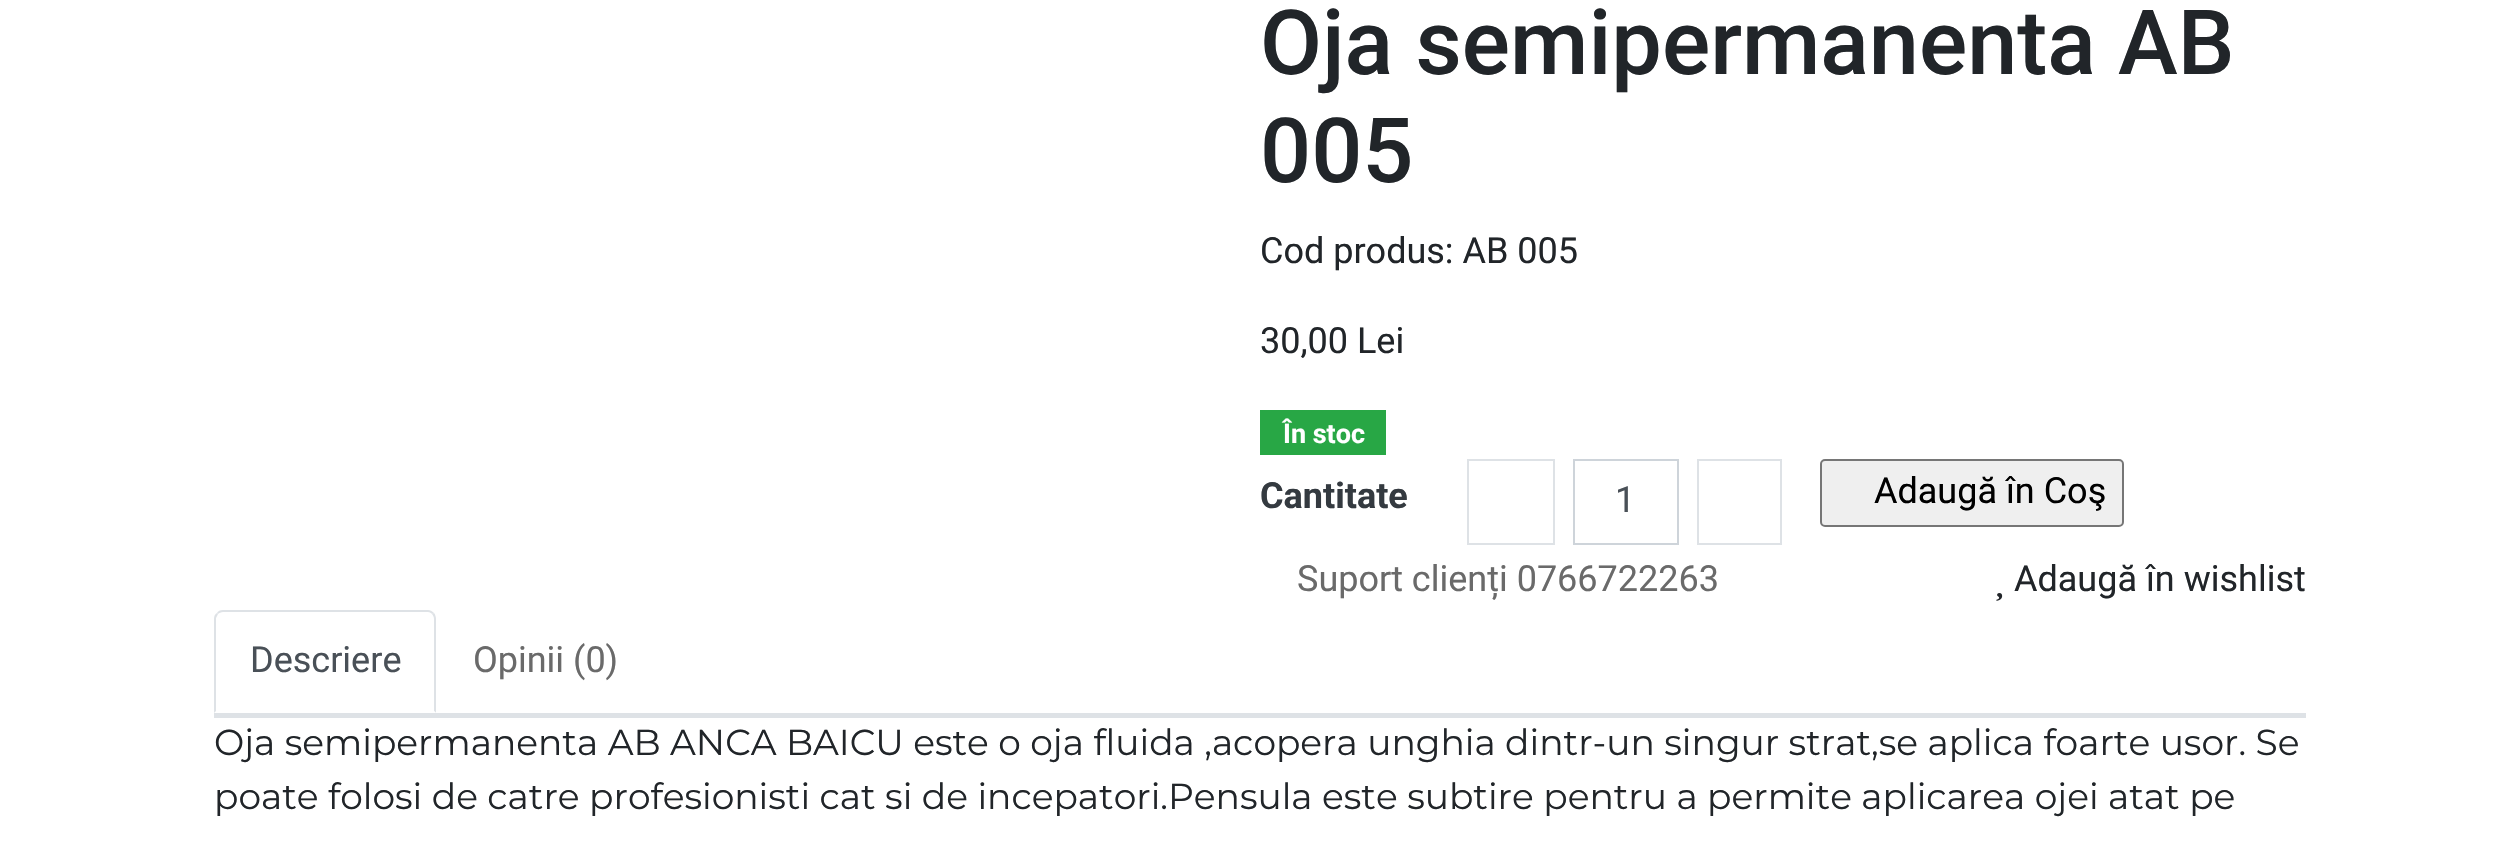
void draw(SkCanvas* c) {
SkPaint p;
p.setAntiAlias(true);
auto F=[&](const char* family, int weight, float size, bool italic = false){SkFontStyle style(weight, SkFontStyle::kNormal_Width,italic ? SkFontStyle::kItalic_Slant : SkFontStyle::kUpright_Slant);SkFont result(fontMgr->matchFamilyStyle(family, style), size);result.setSubpixel(true);return result;};
auto T=[&](const char* s, float x, float y, const SkFont& font){c->drawString(s, x, y, font, p);};
auto R=[&](float x, float y, float w, float h){c->drawRect(SkRect::MakeXYWH(x, y, w, h), p);};
auto I=[&](const char* path, float x, float y, float w, float h){auto image = SkImages::DeferredFromEncodedData(SkData::MakeFromFileName(path));c->drawImageRect(image, SkRect::MakeXYWH(x, y, w, h), SkSamplingOptions());};
auto P=[&](const char* data, bool evenOdd = false){SkPath result = *SkParsePath::FromSVGString(data);if (evenOdd) result.setFillType(SkPathFillType::kEvenOdd);return result;};
c->clear(0xffffffff);
auto f1 = F("Roboto",500,90);
p.setColor(0xff212529);
T("Oja semipermanenta AB",1260,74,f1);
T("005",1260,182,f1);
auto f2 = F("Roboto",400,36);
T("Cod produs: AB 005",1260,263,f2);
T("30,00 Lei",1260,353,f2);
p.setColor(0xff28a745);
R(1260,410,126,45);
auto f3 = F("Roboto",700,27);
p.setColor(0xffffffff);
T("În stoc",1283,443,f3);
auto f4 = F("Roboto",700,36);
p.setColor(0xff343a40);
T("Cantitate",1260,508,f4);
p.setStroke(true);
p.setStrokeWidth(2);
p.setColor(0xffdee2e6);
c->drawRect(SkRect::MakeXYWH(1468,460,86,84),p);
p.setColor(0xffced4da);
c->drawRect(SkRect::MakeXYWH(1574,460,104,84),p);
p.setStroke(false);
p.setColor(0xff495057);
T("1",1615,512,f2);
p.setStroke(true);
p.setColor(0xffdee2e6);
c->drawRect(SkRect::MakeXYWH(1698,460,83,84),p);
p.setStroke(false);
p.setColor(0xffefefef);
c->drawRoundRect(SkRect::MakeXYWH(1821,460,302,66),4,4,p);
p.setStroke(true);
p.setColor(0xff767676);
c->drawRoundRect(SkRect::MakeXYWH(1821,460,302,66),4,4,p);
p.setStroke(false);
p.setColor(0xff000000);
T("Adaugă în Coş",1874,503,f2);
p.setColor(0xff6a6a6a);
T("Suport clienți 0766722263",1297,591,f2);
I("1.png",1996,593,7,8);
p.setColor(0xff212529);
T("Adaugă în wishlist",2014,591,f2);
p.setColor(0xffdee2e6);
R(214,713,2092,5);
c->drawPath(P("M223 610c-3 0-5 1-6 3l1 1c1-1 3-2 5-2h205c2 0 3 1 4 2l2-1c-2-2-4-3-6-3z"),p);
c->drawPath(P("M436 713v-94c0-2-1-5-2-6l-2 1c1 1 2 3 2 5v92z"),p);
p.setColor(0xffffffff);
c->drawPath(P("M436 713h-222l2-2h218z"),p);
p.setColor(0xffdee2e6);
c->drawPath(P("M217 613c-2 1-3 3-3 6v94l2-2v-93l2-4z"),p);
p.setColor(0xff495057);
T("Descriere",250,672,f2);
p.setColor(0xff6a6a6a);
T("Opinii (0)",473,672,f2);
auto f5 = F("Montserrat",400,36);
p.setColor(0xff212529);
T("Oja semipermanenta AB ANCA BAICU este o oja fluida ,acopera unghia dintr-un singur strat,se aplica foarte usor. Se",214,755,f5);
T("poate folosi de catre profesionisti cat si de incepatori.Pensula este subtire pentru a permite aplicarea ojei atat pe",214,809,f5);
}
